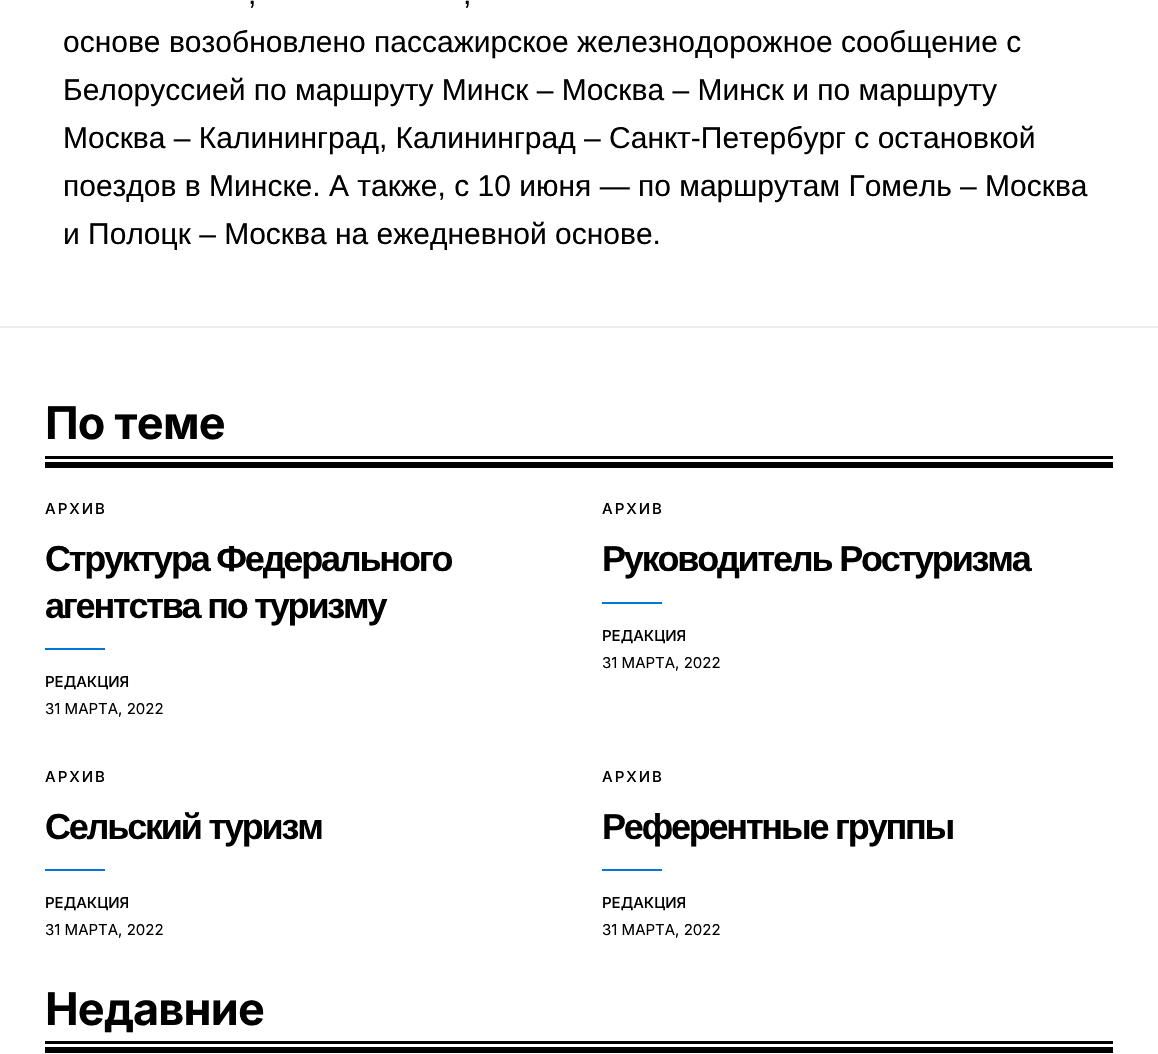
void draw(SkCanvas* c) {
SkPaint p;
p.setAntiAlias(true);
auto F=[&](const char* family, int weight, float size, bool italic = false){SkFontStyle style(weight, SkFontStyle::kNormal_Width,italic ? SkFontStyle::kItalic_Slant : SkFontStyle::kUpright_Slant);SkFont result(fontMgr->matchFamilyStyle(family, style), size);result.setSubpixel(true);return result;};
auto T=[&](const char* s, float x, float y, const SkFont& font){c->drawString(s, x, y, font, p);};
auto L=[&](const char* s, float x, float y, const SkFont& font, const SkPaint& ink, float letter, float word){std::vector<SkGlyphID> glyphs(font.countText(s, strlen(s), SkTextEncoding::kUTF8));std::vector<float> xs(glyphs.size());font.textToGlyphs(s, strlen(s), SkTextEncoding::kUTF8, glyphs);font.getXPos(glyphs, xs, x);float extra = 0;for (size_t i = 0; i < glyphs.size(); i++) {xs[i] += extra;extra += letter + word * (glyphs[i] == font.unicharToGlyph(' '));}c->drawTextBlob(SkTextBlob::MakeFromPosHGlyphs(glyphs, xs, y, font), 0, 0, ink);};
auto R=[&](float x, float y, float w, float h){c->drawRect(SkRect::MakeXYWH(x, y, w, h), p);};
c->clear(0xffffffff);
auto f1 = F("Liberation Sans",400,30);
p.setColor(0xff000000);
T(",",248,4,f1);
T(",",463,4,f1);
T("основе возобновлено пассажирское железнодорожное сообщение с",63,52,f1);
T("Белоруссией по маршруту Минск – Москва – Минск и по маршруту",63,100,f1);
T("Москва – Калининград, Калининград – Санкт-Петербург с остановкой",63,148,f1);
T("поездов в Минске. А также, с 10 июня — по маршрутам Гомель – Москва",63,196,f1);
T("и Полоцк – Москва на ежедневной основе.",63,244,f1);
p.setColor(0xffededed);
R(0,326,1158,2);
p.setColor(0xff000000);
R(45,462,1068,6);
auto f2 = F("Inter",700,45);
L("По теме",45,439,f2,p,-.75,0);
R(45,456,1068,3);
auto f3 = F("Inter",500,15);
L("АРХИВ",45,514,f3,p,2,0);
auto f4 = F("Liberation Sans",700,36);
L("Структура Федерального",45,571,f4,p,-2.2,0);
L("агентства по туризму",45,618,f4,p,-2.2,0);
p.setColor(0xff0275d8);
R(45,648,60,2);
p.setColor(0xff000000);
T("РЕДАКЦИЯ",45,687,f3);
auto f5 = F("Inter",400,15);
T("31 МАРТА, 2022",45,714,f5);
L("АРХИВ",602,514,f3,p,2,0);
L("Руководитель Ростуризма",602,571,f4,p,-2.2,0);
p.setColor(0xff0275d8);
R(602,602,60,2);
p.setColor(0xff000000);
T("РЕДАКЦИЯ",602,641,f3);
T("31 МАРТА, 2022",602,668,f5);
L("АРХИВ",45,782,f3,p,2,0);
L("Сельский туризм",45,839,f4,p,-2.2,0);
p.setColor(0xff0275d8);
R(45,869,60,2);
p.setColor(0xff000000);
T("РЕДАКЦИЯ",45,908,f3);
T("31 МАРТА, 2022",45,935,f5);
L("АРХИВ",602,782,f3,p,2,0);
L("Референтные группы",602,839,f4,p,-2.2,0);
p.setColor(0xff0275d8);
R(602,869,60,2);
p.setColor(0xff000000);
T("РЕДАКЦИЯ",602,908,f3);
T("31 МАРТА, 2022",602,935,f5);
R(45,1047,1068,6);
L("Недавние",45,1025,f2,p,-.75,0);
R(45,1041,1068,3);
}
